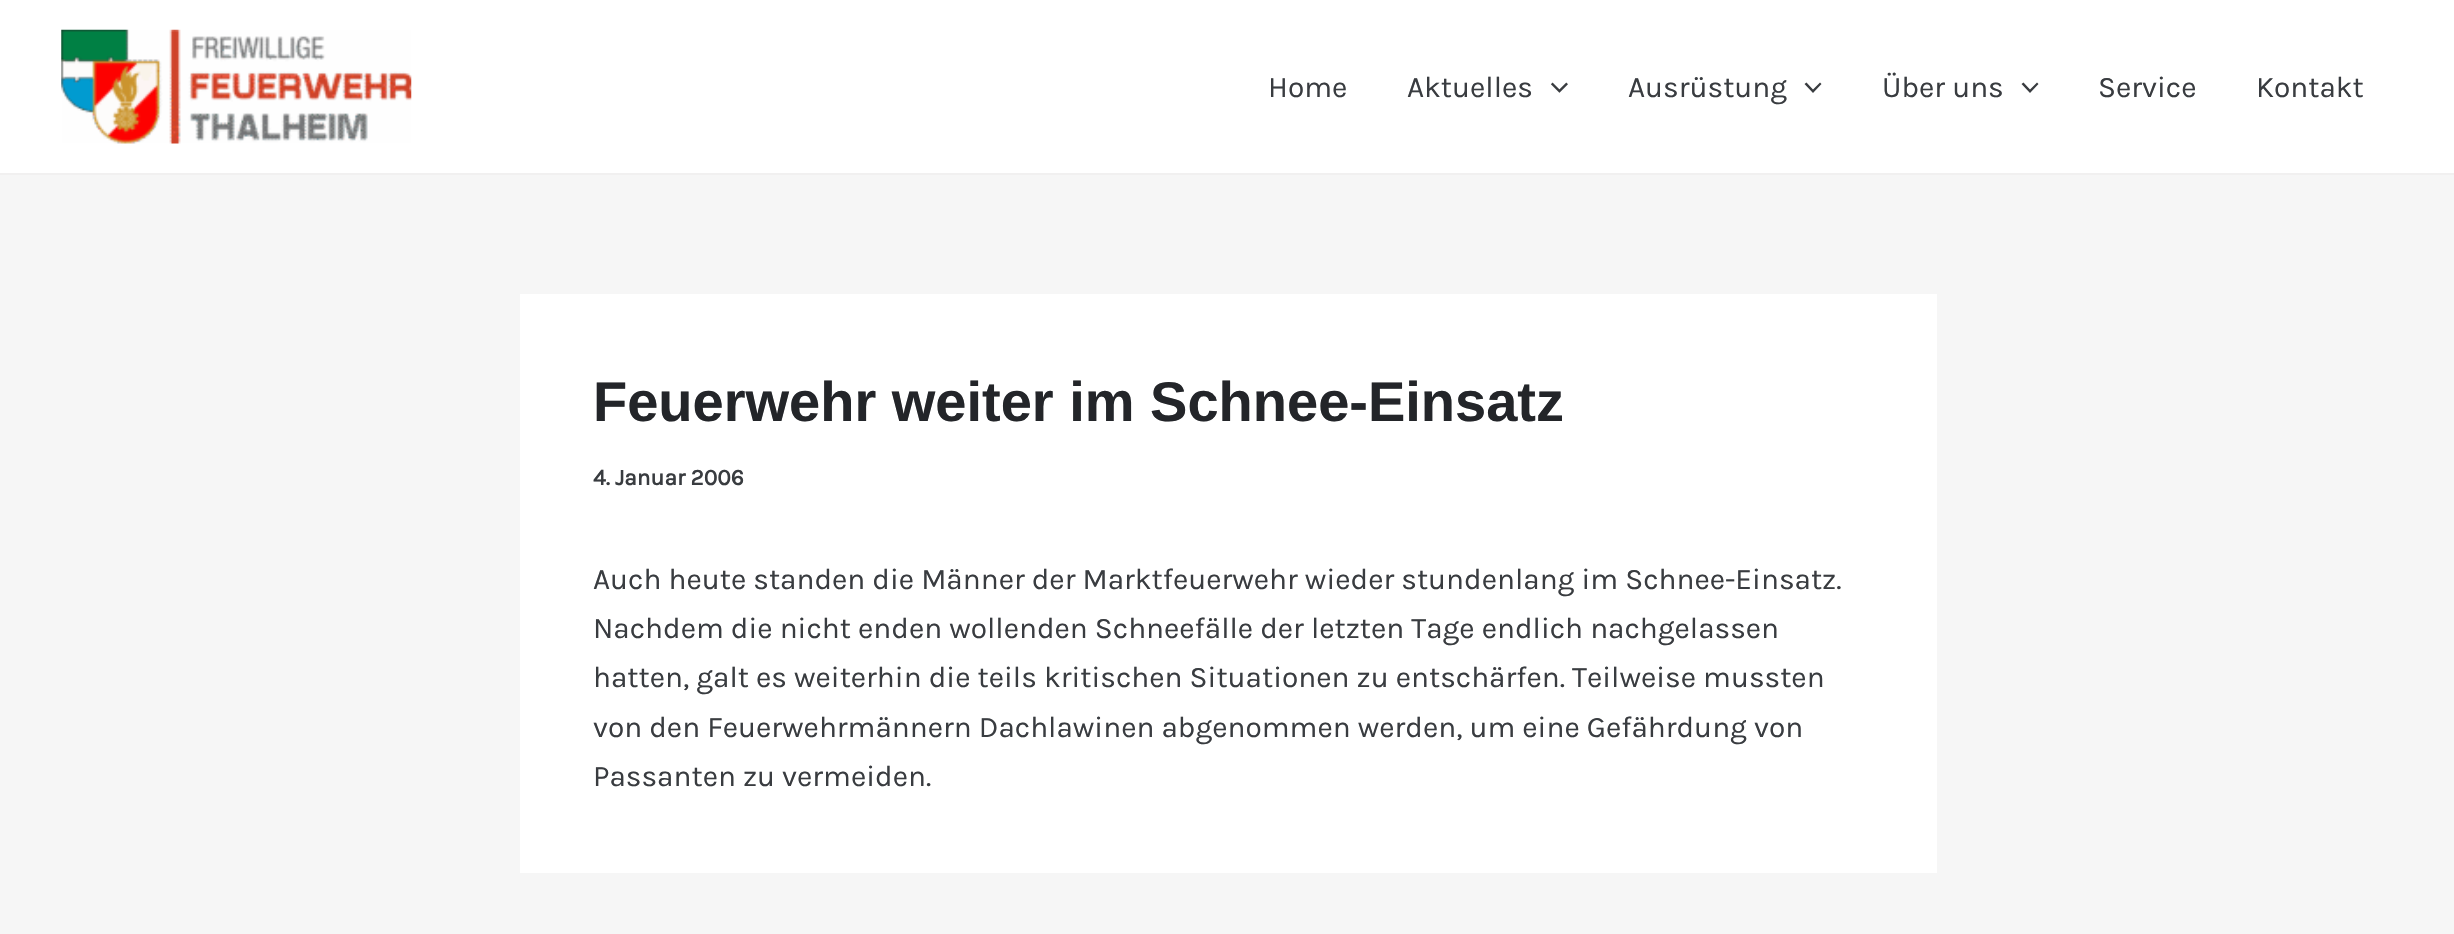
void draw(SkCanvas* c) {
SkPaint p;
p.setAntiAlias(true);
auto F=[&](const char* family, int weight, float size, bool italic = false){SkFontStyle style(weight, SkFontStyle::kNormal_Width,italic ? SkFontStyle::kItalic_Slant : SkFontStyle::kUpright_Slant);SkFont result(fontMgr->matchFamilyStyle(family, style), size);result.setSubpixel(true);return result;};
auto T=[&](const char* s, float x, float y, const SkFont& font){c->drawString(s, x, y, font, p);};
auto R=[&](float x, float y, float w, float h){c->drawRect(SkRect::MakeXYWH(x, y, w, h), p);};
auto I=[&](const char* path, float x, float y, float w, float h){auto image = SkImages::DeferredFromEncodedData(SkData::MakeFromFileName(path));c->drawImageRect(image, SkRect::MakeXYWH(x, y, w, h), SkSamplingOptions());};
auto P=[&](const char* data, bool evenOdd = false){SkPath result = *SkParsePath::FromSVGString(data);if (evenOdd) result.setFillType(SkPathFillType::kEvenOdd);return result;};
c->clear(0xfff6f6f6);
p.setColor(0xffffffff);
R(0,0,2454,173);
p.setColor(0xfff1f0f0);
R(0,173,2454,2);
I("1.png",61,29,351,115);
auto f1 = F("Karla",400,29.75);
p.setColor(0xff393c40);
T("Home",1268,97,f1);
T("Aktuelles",1407,97,f1);
I("2.png",1551,82,17,11);
T("Ausrüstung",1628,97,f1);
c->drawPath(P("M1804.5 84l8.5 9l8.5-9l-1.5-1.5l-7 7l-6.5-7z"),p);
T("Über uns",1882,97,f1);
c->drawPath(P("M2021.5 84l8.5 9l8.5-9l-1.5-1.5l-7 7l-6.5-7z"),p);
T("Service",2098,97,f1);
T("Kontakt",2256,97,f1);
p.setColor(0xffffffff);
R(520,294,1417,579);
auto f2 = F("Liberation Sans",700,56);
p.setColor(0xff232529);
T("Feuerwehr weiter im Schnee-Einsatz",593,421,f2);
auto f3 = F("Karla",700,22.75);
p.setColor(0xff393c40);
T("4. Januar 2006",593,485,f3);
T("Auch heute standen die Männer der Marktfeuerwehr wieder stundenlang im Schnee-Einsatz.",593,589,f1);
T("Nachdem die nicht enden wollenden Schneefälle der letzten Tage endlich nachgelassen",593,638,f1);
T("hatten, galt es weiterhin die teils kritischen Situationen zu entschärfen. Teilweise mussten",593,687,f1);
T("von den Feuerwehrmännern Dachlawinen abgenommen werden, um eine Gefährdung von",593,737,f1);
T("Passanten zu vermeiden.",593,786,f1);
}
